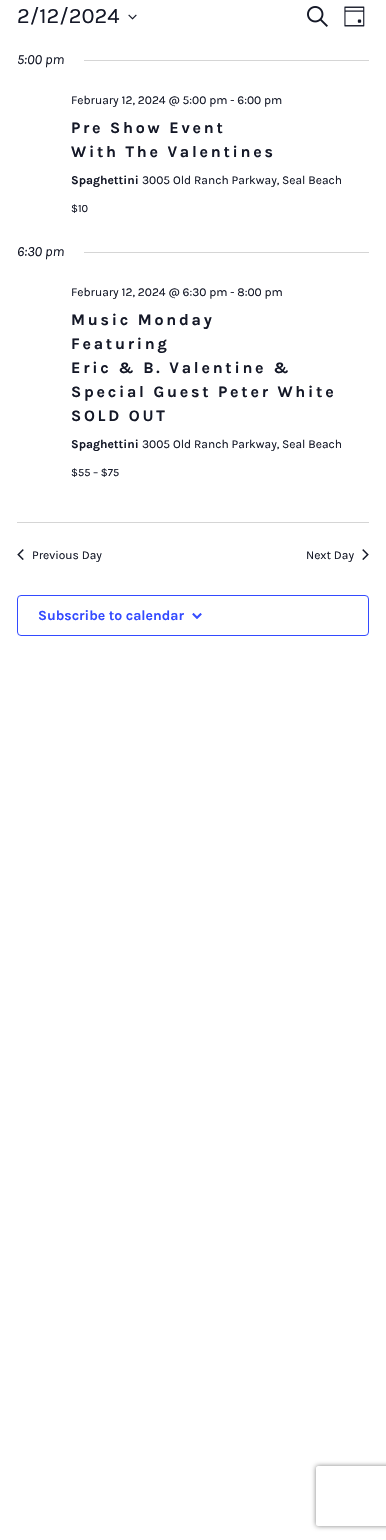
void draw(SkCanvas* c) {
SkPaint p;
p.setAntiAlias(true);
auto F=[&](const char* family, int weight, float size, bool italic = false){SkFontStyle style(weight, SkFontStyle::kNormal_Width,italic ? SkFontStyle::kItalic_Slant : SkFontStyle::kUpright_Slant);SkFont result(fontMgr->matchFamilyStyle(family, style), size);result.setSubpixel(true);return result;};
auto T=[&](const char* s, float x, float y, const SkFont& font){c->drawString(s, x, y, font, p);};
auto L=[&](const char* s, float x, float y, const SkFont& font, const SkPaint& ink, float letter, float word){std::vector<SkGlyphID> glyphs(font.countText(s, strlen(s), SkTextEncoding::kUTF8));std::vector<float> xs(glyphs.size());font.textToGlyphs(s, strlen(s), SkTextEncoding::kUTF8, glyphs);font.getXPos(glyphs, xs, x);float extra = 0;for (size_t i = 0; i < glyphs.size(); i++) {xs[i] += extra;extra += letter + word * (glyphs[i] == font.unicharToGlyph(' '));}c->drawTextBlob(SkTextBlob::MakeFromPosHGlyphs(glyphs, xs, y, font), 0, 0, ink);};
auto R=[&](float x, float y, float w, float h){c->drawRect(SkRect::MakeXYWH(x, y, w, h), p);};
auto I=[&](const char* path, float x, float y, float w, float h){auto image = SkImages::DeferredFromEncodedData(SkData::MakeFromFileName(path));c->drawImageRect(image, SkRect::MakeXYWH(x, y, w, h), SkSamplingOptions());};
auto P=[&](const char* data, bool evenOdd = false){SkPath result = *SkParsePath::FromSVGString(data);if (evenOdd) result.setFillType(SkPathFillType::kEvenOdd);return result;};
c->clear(0xffffffff);
auto f1 = F("Karla",400,22);
p.setColor(0xff141827);
T("2/12/2024",17,23,f1);
I("1.png",128,14,9,6);
I("2.png",307,6,21,21);
I("3.png",344,6,21,21);
auto f2 = F("Karla",400,14,true);
T("5:00 pm",17,64,f2);
p.setColor(0xffd5d5d5);
R(84,60,285,1);
auto f3 = F("Karla",400,12);
p.setColor(0xff141827);
T("February 12, 2024 @ 5:00 pm - 6:00 pm",71,104,f3);
auto f4 = F("Karla",700,16);
L("Pre Show Event",71,133,f4,p,2.75,0);
L("With The Valentines",71,157,f4,p,2.75,0);
auto f5 = F("Karla",700,12);
T("Spaghettini",71,184,f5);
T("3005 Old Ranch Parkway, Seal Beach",142,184,f3);
auto f6 = F("Karla",400,11);
T("$10",71,212,f6);
T("6:30 pm",17,256,f2);
p.setColor(0xffd5d5d5);
R(84,252,285,1);
p.setColor(0xff141827);
T("February 12, 2024 @ 6:30 pm - 8:00 pm",71,296,f3);
L("Music Monday",71,325,f4,p,2.75,0);
L("Featuring",71,349,f4,p,2.75,0);
L("Eric & B. Valentine &",71,373,f4,p,2.75,0);
L("Special Guest Peter White",71,397,f4,p,2.75,0);
L("SOLD OUT",71,421,f4,p,2.75,0);
T("Spaghettini",71,448,f5);
T("3005 Old Ranch Parkway, Seal Beach",142,448,f3);
T("$55 – $75",71,476,f6);
p.setColor(0xffd5d5d5);
R(17,522,352,1);
I("4.png",17,549,7,11);
p.setColor(0xff141827);
T("Previous Day",32,559,f3);
T("Next Day",306,559,f3);
I("5.png",362,549,7,11);
p.setStroke(true);
p.setStrokeWidth(1);
p.setColor(0xff334aff);
c->drawRoundRect(SkRect::MakeXYWH(17.5,595.5,351,40),3.5,3.5,p);
auto f7 = F("Karla",700,14);
p.setStroke(false);
T("Subscribe to calendar",38,620,f7);
I("6.png",192,613,10,6);
c->save();
c->clipPath(P("M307 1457h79v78h-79zm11 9h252c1 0 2 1 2 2v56c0 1-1 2-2 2h-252c-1 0-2-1-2-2v-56c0-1 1-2 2-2z",true),true);
p.setColor(0xff808080);
p.setMaskFilter(SkMaskFilter::MakeBlur(kNormal_SkBlurStyle, 2.5));
c->drawRoundRect(SkRect::MakeXYWH(316,1466,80,60),2,2,p);
p.setMaskFilter(nullptr);
c->restore();
}
